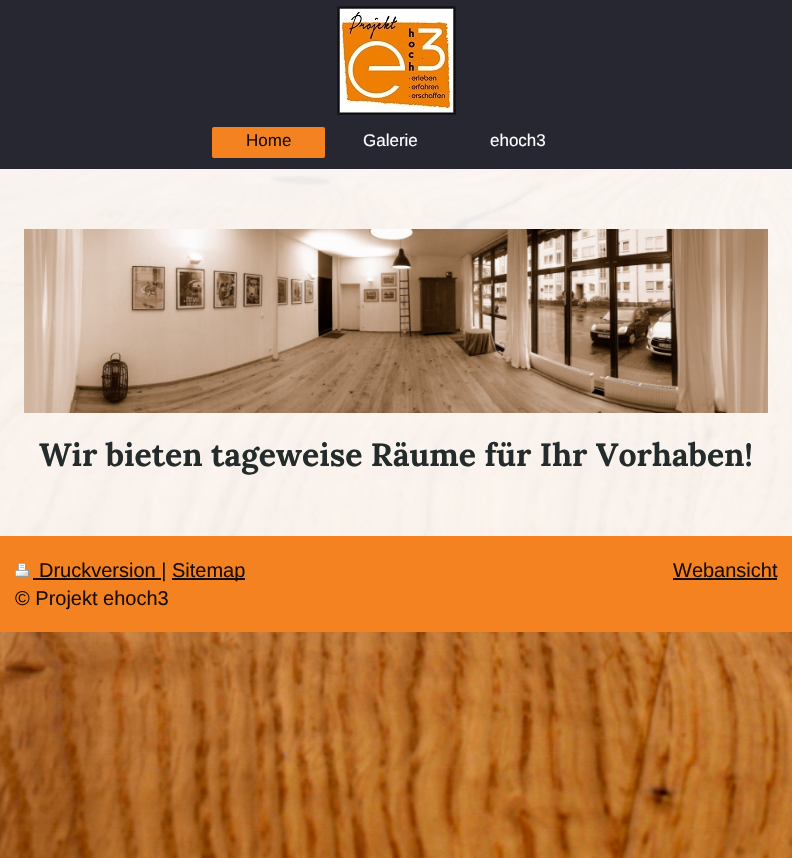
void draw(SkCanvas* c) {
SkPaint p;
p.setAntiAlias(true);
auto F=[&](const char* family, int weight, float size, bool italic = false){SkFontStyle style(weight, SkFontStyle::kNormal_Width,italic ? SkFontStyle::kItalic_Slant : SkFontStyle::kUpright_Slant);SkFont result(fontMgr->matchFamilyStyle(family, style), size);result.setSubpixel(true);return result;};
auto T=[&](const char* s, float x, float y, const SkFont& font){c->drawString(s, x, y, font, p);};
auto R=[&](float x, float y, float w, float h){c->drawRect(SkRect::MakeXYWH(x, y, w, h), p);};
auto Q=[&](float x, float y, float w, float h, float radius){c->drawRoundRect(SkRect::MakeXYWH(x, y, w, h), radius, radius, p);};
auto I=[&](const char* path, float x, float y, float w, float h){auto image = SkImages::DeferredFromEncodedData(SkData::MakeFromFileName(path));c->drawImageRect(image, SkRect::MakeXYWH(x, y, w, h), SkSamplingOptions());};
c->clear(0xffffffff);
I("1.png",0,169,792,689);
p.setColor(0xff262730);
R(0,0,792,169);
I("2.png",337,6,119,109);
p.setColor(0xfff58220);
Q(212,127,113,31,2);
R(213,157,111,1);
auto f1 = F("Liberation Sans",400,17);
p.setColor(0xff190d03);
T("Home",246,146,f1);
p.setColor(0xffffffff);
T("Galerie",363,146,f1);
T("ehoch3",490,146,f1);
p.setColor(0xe6ffffff);
R(0,169,792,367);
I("3.png",24,229,744,184);
auto f2 = F("Lora",700,32);
p.setColor(0xff242b2b);
T("Wir bieten tageweise Räume für Ihr Vorhaben!",39,466,f2);
p.setColor(0xfff58220);
R(0,536,792,96);
I("4.png",15,563,14,14);
p.setColor(0xff190d03);
R(33,578,128,2);
auto f3 = F("Liberation Sans",400,20);
T("Druckversion |",39,577,f3);
R(172,578,73,2);
T("Sitemap",172,577,f3);
T("© Projekt ehoch3",15,605,f3);
T("Webansicht",673,577,f3);
R(673,578,104,2);
}
